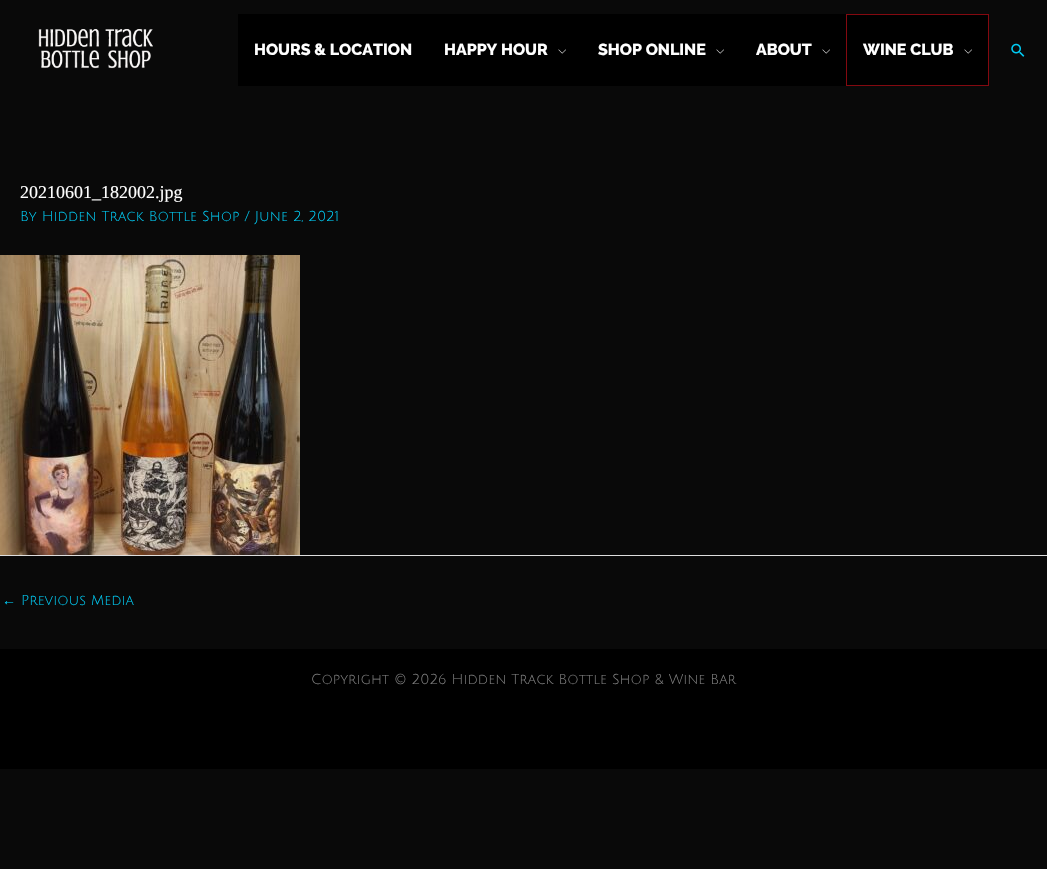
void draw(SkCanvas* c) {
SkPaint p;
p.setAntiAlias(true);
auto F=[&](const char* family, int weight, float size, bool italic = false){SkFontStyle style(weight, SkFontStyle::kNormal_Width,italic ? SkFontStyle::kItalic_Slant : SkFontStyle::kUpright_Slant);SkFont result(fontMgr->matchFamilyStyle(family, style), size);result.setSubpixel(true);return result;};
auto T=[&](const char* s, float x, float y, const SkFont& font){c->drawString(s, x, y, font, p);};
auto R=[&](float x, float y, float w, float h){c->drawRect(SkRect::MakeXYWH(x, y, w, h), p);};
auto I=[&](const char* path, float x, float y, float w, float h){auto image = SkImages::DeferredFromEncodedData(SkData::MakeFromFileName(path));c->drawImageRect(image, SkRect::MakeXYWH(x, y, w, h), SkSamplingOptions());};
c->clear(0xff090909);
I("1.png",38,29,115,40);
p.setColor(0xff000000);
R(238,14,750,72);
auto f1 = F("Raleway",800,16);
p.setColor(0xffffffff);
T("HOURS & LOCATION",254,55,f1);
T("HAPPY HOUR",444,55,f1);
I("2.png",558,49,8,5);
T("SHOP ONLINE",598,55,f1);
I("2.png",716,49,8,5);
T("ABOUT",756,55,f1);
I("2.png",822,49,8,5);
p.setStroke(true);
p.setStrokeWidth(1);
p.setColor(0xff840910);
c->drawRect(SkRect::MakeXYWH(846.5,14.5,142,71),p);
p.setStroke(false);
p.setColor(0xffffffff);
T("WINE CLUB",863,55,f1);
I("2.png",964,49,8,5);
I("3.png",1011,43,14,14);
auto f2 = F("Liberation Serif",400,18);
T("20210601_182002.jpg",20,198,f2);
auto f3 = F("Julius Sans One",400,14);
p.setColor(0xff00cbf4);
T("By Hidden Track Bottle Shop / June 2, 2021",20,221,f3);
I("4.png",0,255,300,300);
p.setColor(0xffdddddd);
R(0,555,1047,1);
auto f4 = F("Liberation Sans",400,14);
p.setColor(0xff00cbf4);
T("←",2,605,f4);
T("Previous Media",21,605,f3);
p.setColor(0xff000000);
R(0,649,1047,120);
p.setColor(0xff7f7f7f);
T("Copyright © 2026 Hidden Track Bottle Shop & Wine Bar",311,684,f3);
}
